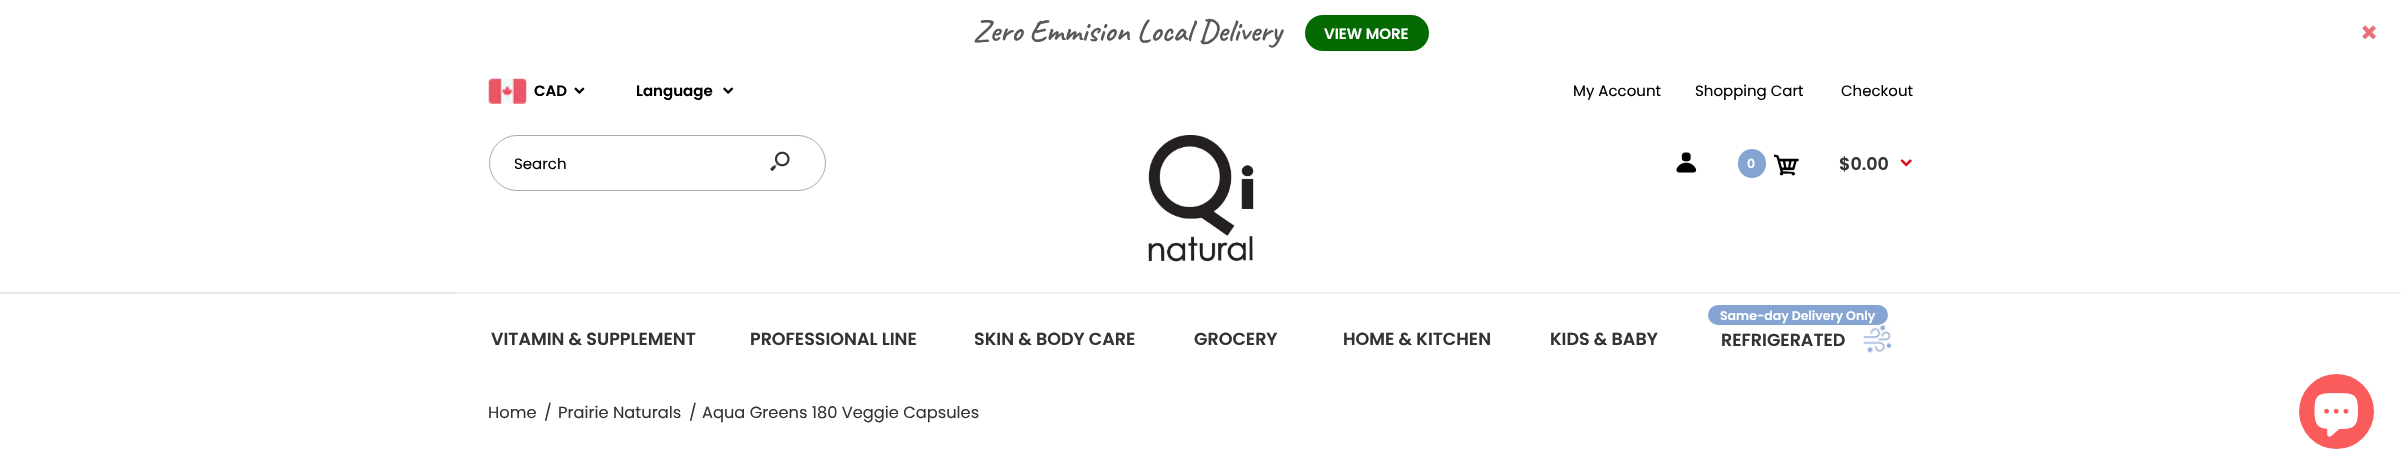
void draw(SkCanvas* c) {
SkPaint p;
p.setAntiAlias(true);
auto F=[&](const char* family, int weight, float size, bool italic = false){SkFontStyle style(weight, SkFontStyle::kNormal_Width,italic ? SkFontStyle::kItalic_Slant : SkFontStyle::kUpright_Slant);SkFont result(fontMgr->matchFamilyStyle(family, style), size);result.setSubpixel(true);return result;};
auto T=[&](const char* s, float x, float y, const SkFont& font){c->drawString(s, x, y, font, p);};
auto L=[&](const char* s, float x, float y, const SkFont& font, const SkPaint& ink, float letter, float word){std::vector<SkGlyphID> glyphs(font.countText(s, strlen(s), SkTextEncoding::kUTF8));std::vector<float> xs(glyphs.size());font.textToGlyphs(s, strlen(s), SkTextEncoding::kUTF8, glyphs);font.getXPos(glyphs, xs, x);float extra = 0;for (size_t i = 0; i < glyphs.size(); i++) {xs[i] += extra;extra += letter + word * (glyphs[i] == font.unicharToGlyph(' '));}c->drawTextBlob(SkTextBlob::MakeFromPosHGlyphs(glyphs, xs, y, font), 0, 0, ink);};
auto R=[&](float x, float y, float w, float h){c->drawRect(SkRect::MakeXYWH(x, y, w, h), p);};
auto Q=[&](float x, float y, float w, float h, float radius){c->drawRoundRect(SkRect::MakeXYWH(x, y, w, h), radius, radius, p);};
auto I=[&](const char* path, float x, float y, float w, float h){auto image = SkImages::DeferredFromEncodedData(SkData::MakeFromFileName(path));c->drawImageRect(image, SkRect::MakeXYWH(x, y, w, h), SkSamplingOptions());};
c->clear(0xffffffff);
auto f1 = F("Caveat",600,31.25);
p.setColor(0xff5a5757);
L("Zero Emmision Local Delivery",973,41,f1,p,0,-.5);
p.setColor(0xff036900);
Q(1305,15,124,36,18);
auto f2 = F("Poppins",600,15);
p.setColor(0xffffffff);
T("VIEW MORE",1324,39,f2);
I("1.png",2362,25,14,14);
I("2.png",488,78,39,26);
p.setColor(0xff000000);
T("CAD",534,96,f2);
I("3.png",574,87,11,7);
T("Language",636,96,f2);
I("4.png",723,87,11,7);
auto f3 = F("Poppins",400,15);
T("My Account",1573,96,f3);
T("Shopping Cart",1695,96,f3);
T("Checkout",1841,96,f3);
p.setStroke(true);
p.setStrokeWidth(1);
p.setColor(0xffa8a8a8);
c->drawRoundRect(SkRect::MakeXYWH(489.5,135.5,336,55),27.5,27.5,p);
p.setStroke(false);
p.setColor(0xff000000);
T("Search",514,169,f3);
I("5.png",770,151,20,20);
I("6.png",1148,135,106,127);
I("7.png",1676,152,21,21);
p.setColor(0xff85a4d2);
Q(1738,149,28,29,14);
auto f4 = F("Poppins",600,12.5);
p.setColor(0xffffffff);
T("0",1747,168,f4);
I("8.png",1774,154,25,22);
auto f5 = F("Poppins",600,17.5);
p.setColor(0xff333333);
T("$0.00",1839,170,f5);
I("9.png",1900,159,12,8);
I("10.png",0,292,2401,2);
p.setColor(0xffffffff);
R(0,293,458,1);
I("11.png",0,292,458,2);
p.setColor(0xff333333);
T("VITAMIN & SUPPLEMENT",491,345,f5);
T("PROFESSIONAL LINE",750,345,f5);
T("SKIN & BODY CARE",974,345,f5);
T("GROCERY",1194,345,f5);
T("HOME & KITCHEN",1343,345,f5);
T("KIDS & BABY",1550,345,f5);
p.setColor(0xff85a4d2);
Q(1708,305,180,20,10);
p.setColor(0xffffffff);
T("Same-day Delivery Only",1720,320,f4);
p.setColor(0xff333333);
T("REFRIGERATED",1721,346,f5);
I("12.png",1863,325,29,28);
auto f6 = F("Poppins",400,16.25);
T("Home",488,418,f6);
T("/",544,418,f6);
T("Prairie Naturals",558,418,f6);
T("/",689,418,f6);
T("Aqua Greens 180 Veggie Capsules",702,418,f6);
p.setColor(0xfffa5b5b);
c->drawCircle(2336.5,411.5,37.5,p);
I("13.png",2314,393,44,44);
}
